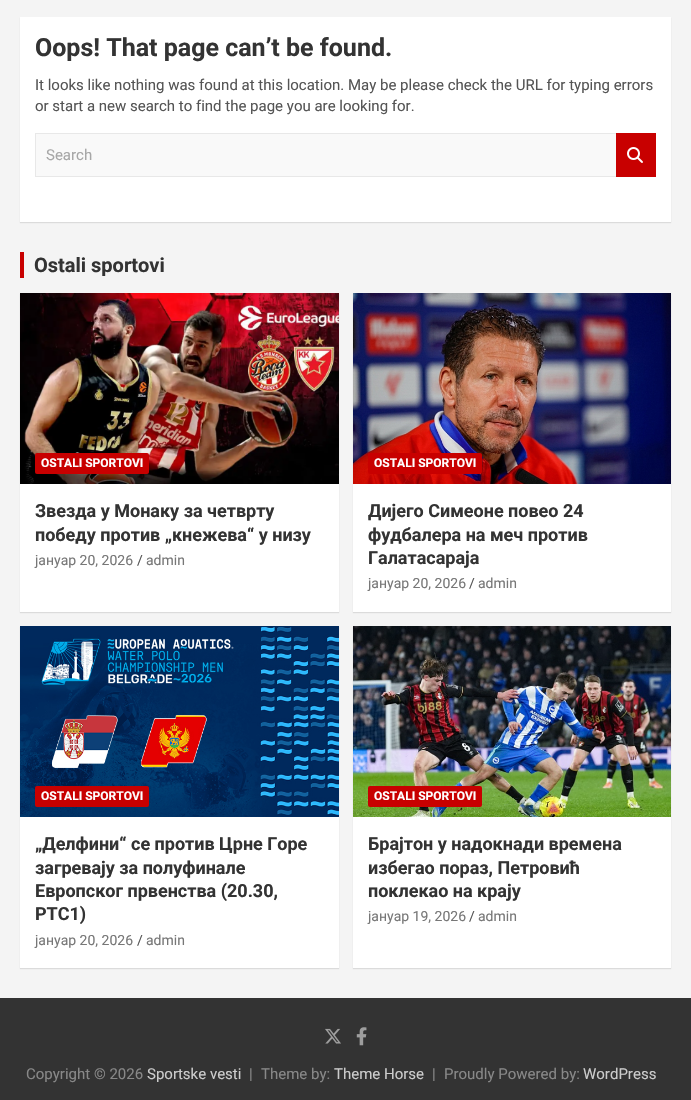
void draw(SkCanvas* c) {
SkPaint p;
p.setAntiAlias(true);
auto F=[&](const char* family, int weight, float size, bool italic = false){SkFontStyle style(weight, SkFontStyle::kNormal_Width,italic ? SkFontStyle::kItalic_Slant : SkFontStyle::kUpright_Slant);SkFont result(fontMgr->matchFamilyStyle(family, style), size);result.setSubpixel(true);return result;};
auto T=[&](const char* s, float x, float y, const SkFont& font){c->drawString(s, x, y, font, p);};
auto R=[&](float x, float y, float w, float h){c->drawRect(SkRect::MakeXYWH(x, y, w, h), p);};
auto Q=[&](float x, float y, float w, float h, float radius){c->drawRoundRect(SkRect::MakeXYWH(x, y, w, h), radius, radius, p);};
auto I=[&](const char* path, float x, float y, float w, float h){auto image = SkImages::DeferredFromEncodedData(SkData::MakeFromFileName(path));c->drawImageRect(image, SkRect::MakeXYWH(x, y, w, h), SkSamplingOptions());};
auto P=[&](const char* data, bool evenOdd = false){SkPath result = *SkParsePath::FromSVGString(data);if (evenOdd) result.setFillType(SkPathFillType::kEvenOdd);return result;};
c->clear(0xfff4f4f4);
p.setColor(0x1a000000);
p.setMaskFilter(SkMaskFilter::MakeBlur(kNormal_SkBlurStyle, .5));
c->drawRect(SkRect::MakeXYWH(20,18,651,205),p);
p.setMaskFilter(nullptr);
p.setColor(0xffffffff);
R(20,17,651,205);
auto f1 = F("Roboto",700,25);
p.setColor(0xff333333);
T("Oops! That page can’t be found.",35,56,f1);
auto f2 = F("Roboto",400,15);
p.setColor(0xff555555);
T("It looks like nothing was found at this location. May be please check the URL for typing errors",35,90,f2);
T("or start a new search to find the page you are looking for.",35,111,f2);
p.setColor(0xfff9f9f9);
R(36,134,580,42);
p.setColor(0xffe8e8e8);
c->drawPath(P("M35 133h581v1h-580z"),p);
c->drawPath(P("M616 177h-581l1-1h580z"),p);
p.setColor(0x17000000);
c->drawPath(P("M35 177v-44l1 1v42z"),p);
p.setColor(0xffa7a7a7);
T("Search",46,160,f2);
p.setColor(0xffc80000);
R(616,133,40,44);
I("1.png",627,147,16,16);
R(20,252,4,26);
auto f3 = F("Roboto",700,20);
p.setColor(0xff333333);
T("Ostali sportovi",34,272,f3);
p.setColor(0x1a000000);
p.setMaskFilter(SkMaskFilter::MakeBlur(kNormal_SkBlurStyle, .5));
c->drawRect(SkRect::MakeXYWH(20,294,319,319),p);
p.setMaskFilter(nullptr);
p.setColor(0xffffffff);
R(20,484,319,128);
I("2.png",20,293,319,191);
p.setColor(0xffc80000);
Q(35,453,114,21,2);
auto f4 = F("Roboto",700,12);
p.setColor(0xffffffff);
T("OSTALI SPORTOVI",41,467,f4);
auto f5 = F("Roboto",700,18);
p.setColor(0xff333333);
T("Звезда у Монаку за четврту",35,517,f5);
T("победу против „кнежева“ у низу",35,541,f5);
auto f6 = F("Roboto",400,14);
p.setColor(0xff777777);
T("јануар 20, 2026",35,565,f6);
p.setColor(0xff555555);
T("/",137,565,f6);
p.setColor(0xff777777);
T("admin",146,565,f6);
p.setColor(0x1a000000);
p.setMaskFilter(SkMaskFilter::MakeBlur(kNormal_SkBlurStyle, .5));
c->drawRect(SkRect::MakeXYWH(353,294,318,319),p);
p.setMaskFilter(nullptr);
p.setColor(0xffffffff);
R(353,484,318,128);
I("3.png",353,293,318,191);
p.setColor(0xffc80000);
Q(368,453,114,21,2);
p.setColor(0xffffffff);
T("OSTALI SPORTOVI",374,467,f4);
p.setColor(0xff333333);
T("Дијего Симеоне повео 24",368,517,f5);
T("фудбалера на меч против",368,541,f5);
T("Галатасараја",368,564,f5);
p.setColor(0xff777777);
T("јануар 20, 2026",368,588,f6);
p.setColor(0xff555555);
T("/",469,588,f6);
p.setColor(0xff777777);
T("admin",478,588,f6);
p.setColor(0x1a000000);
p.setMaskFilter(SkMaskFilter::MakeBlur(kNormal_SkBlurStyle, .5));
c->drawRect(SkRect::MakeXYWH(20,627,319,342),p);
p.setMaskFilter(nullptr);
p.setColor(0xffffffff);
R(20,817,319,151);
I("4.png",20,626,319,191);
p.setColor(0xffc80000);
Q(35,786,114,21,2);
p.setColor(0xffffffff);
T("OSTALI SPORTOVI",41,800,f4);
p.setColor(0xff333333);
T("„Делфини“ се против Црне Горе",35,850,f5);
T("загревају за полуфинале",35,874,f5);
T("Европског првенства (20.30,",35,897,f5);
T("РТС1)",35,920,f5);
p.setColor(0xff777777);
T("јануар 20, 2026",35,945,f6);
p.setColor(0xff555555);
T("/",137,945,f6);
p.setColor(0xff777777);
T("admin",146,945,f6);
p.setColor(0x1a000000);
p.setMaskFilter(SkMaskFilter::MakeBlur(kNormal_SkBlurStyle, .5));
c->drawRect(SkRect::MakeXYWH(353,627,318,342),p);
p.setMaskFilter(nullptr);
p.setColor(0xffffffff);
R(353,817,318,151);
I("5.png",353,626,318,191);
p.setColor(0xffc80000);
Q(368,786,114,21,2);
p.setColor(0xffffffff);
T("OSTALI SPORTOVI",374,800,f4);
p.setColor(0xff333333);
T("Брајтон у надокнади времена",368,850,f5);
T("избегао пораз, Петровић",368,874,f5);
T("поклекао на крају",368,897,f5);
p.setColor(0xff777777);
T("јануар 19, 2026",368,921,f6);
p.setColor(0xff555555);
T("/",469,921,f6);
p.setColor(0xff777777);
T("admin",478,921,f6);
p.setColor(0xff333333);
R(0,998,691,102);
I("6.png",325,1028,16,16);
I("7.png",356,1027,11,19);
p.setColor(0xff888888);
T("Copyright © 2026",26,1079,f2);
p.setColor(0xffcccccc);
T("Sportske vesti",147,1079,f2);
p.setColor(0xff888888);
T("|",249,1079,f2);
T("Theme by:",261,1079,f2);
p.setColor(0xffcccccc);
T("Theme Horse",334,1079,f2);
p.setColor(0xff888888);
T("|",432,1079,f2);
T("Proudly Powered by:",444,1079,f2);
p.setColor(0xffcccccc);
T("WordPress",583,1079,f2);
}
